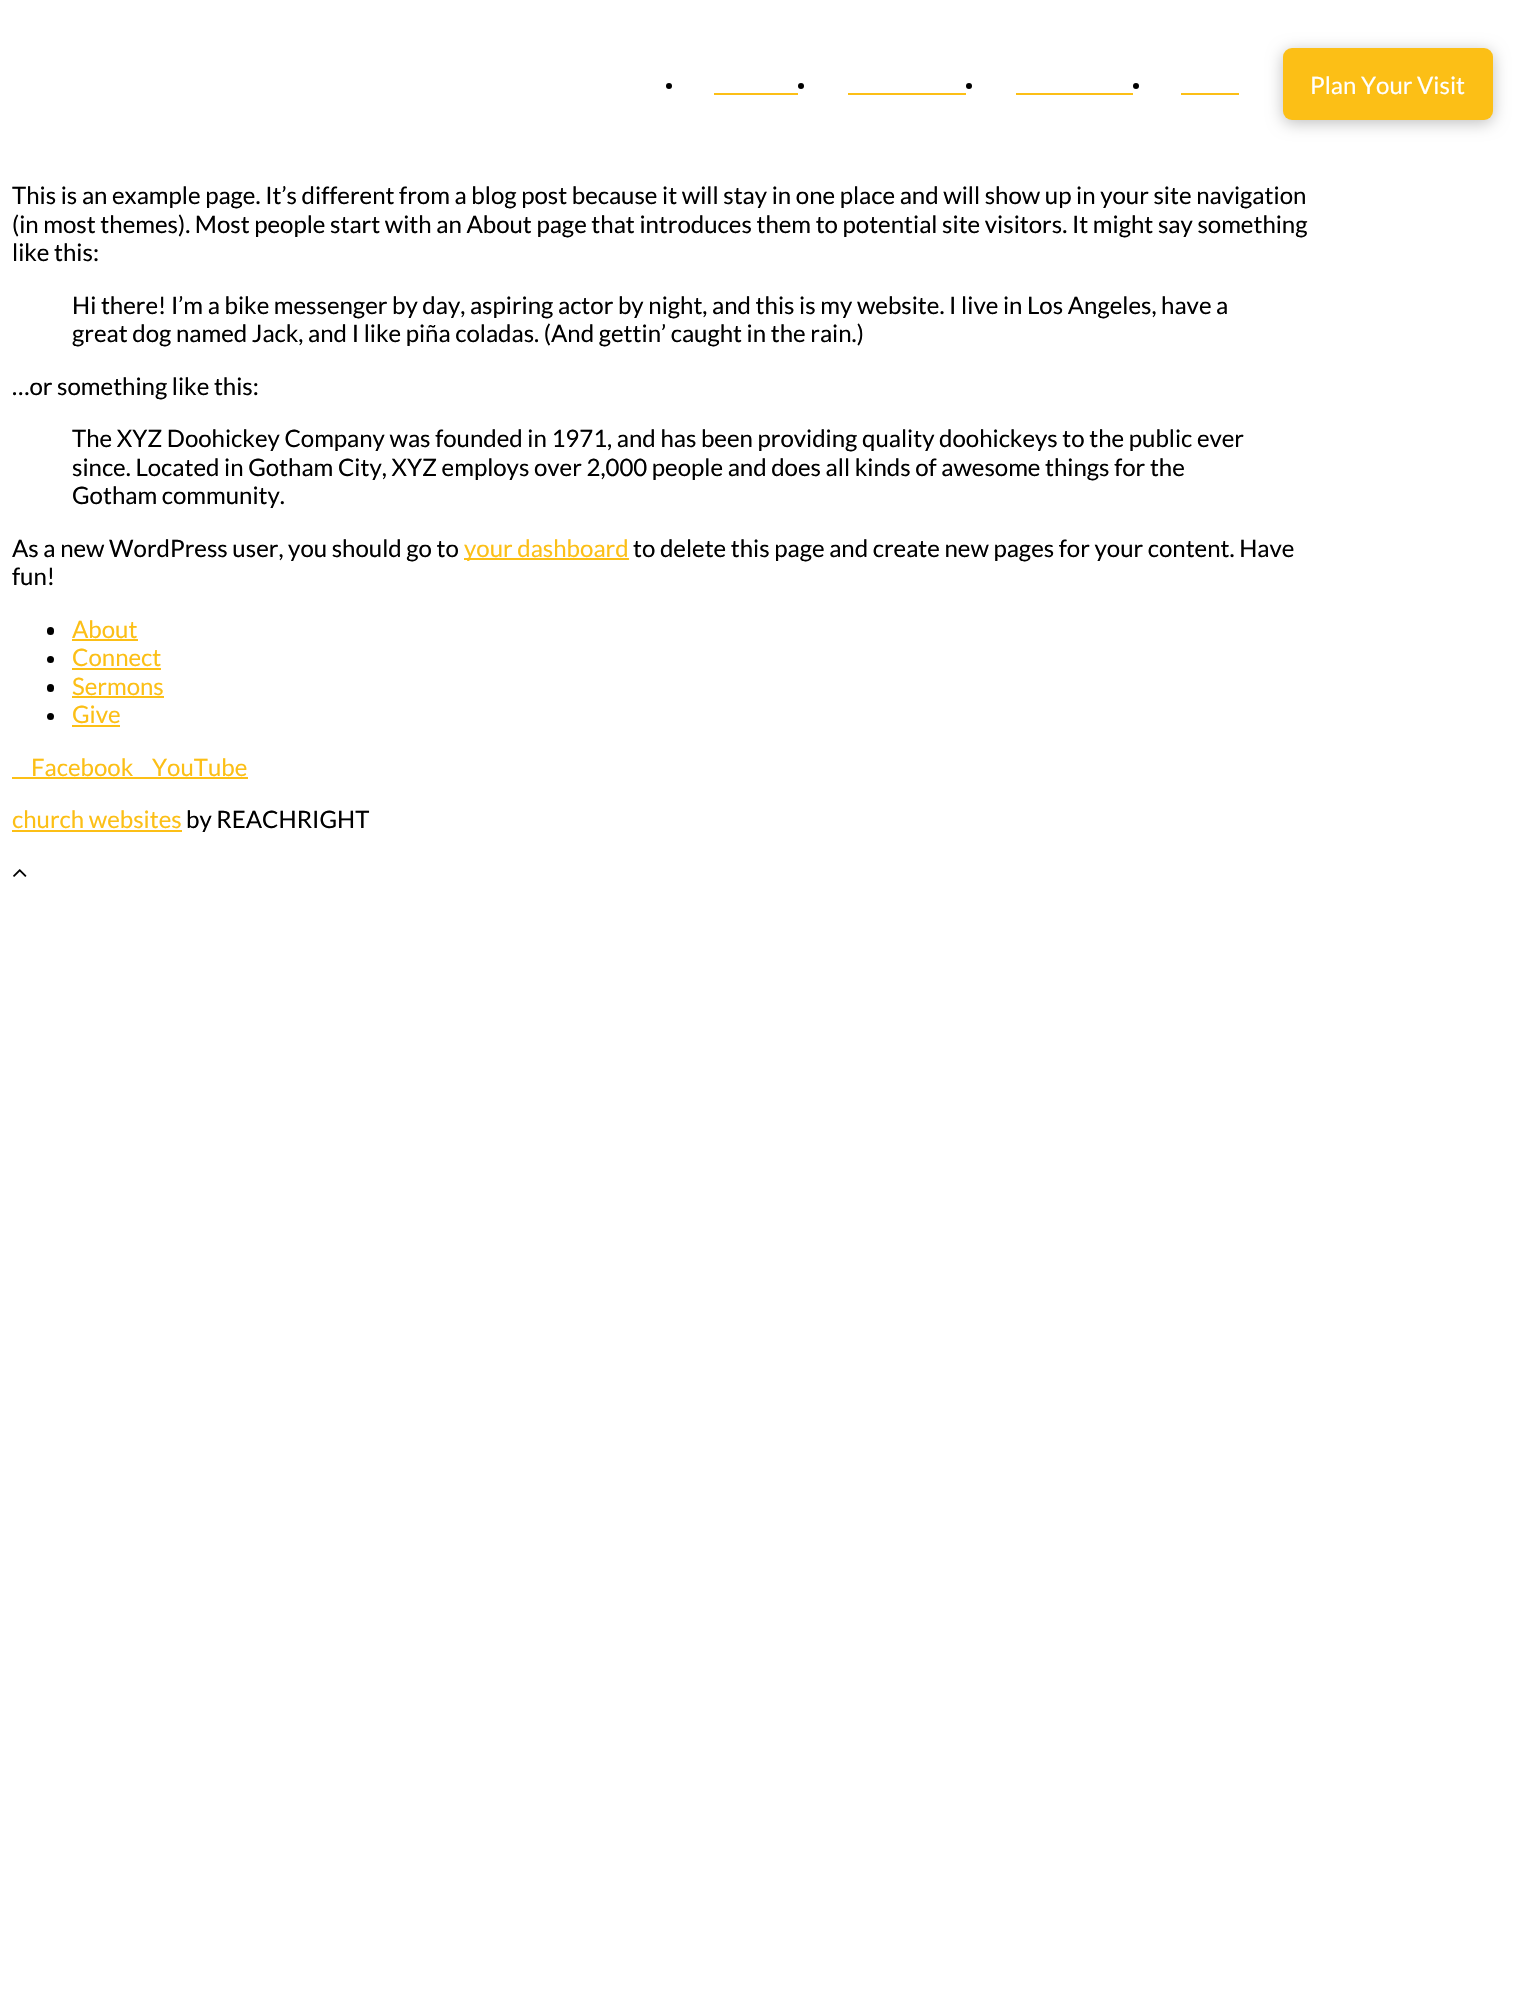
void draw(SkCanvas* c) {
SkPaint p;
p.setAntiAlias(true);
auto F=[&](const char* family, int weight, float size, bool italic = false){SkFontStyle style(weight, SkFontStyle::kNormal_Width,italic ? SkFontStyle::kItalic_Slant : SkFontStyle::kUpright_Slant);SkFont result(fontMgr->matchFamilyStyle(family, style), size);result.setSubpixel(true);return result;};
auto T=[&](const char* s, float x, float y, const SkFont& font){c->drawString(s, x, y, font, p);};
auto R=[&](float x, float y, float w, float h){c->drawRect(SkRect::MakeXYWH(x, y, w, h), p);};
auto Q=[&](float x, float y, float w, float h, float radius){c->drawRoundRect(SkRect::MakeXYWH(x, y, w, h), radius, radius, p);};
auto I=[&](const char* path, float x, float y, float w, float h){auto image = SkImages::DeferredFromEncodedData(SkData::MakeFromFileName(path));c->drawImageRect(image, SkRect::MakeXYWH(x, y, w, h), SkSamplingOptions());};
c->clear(0xffffffff);
p.setColor(0xff000000);
c->drawCircle(669,86,3,p);
p.setColor(0xfffcbf16);
R(714,93,84,2);
p.setColor(0xff000000);
c->drawCircle(801,86,3,p);
p.setColor(0xfffcbf16);
R(848,93,118,2);
p.setColor(0xff000000);
c->drawCircle(969,86,3,p);
p.setColor(0xfffcbf16);
R(1016,93,117,2);
p.setColor(0xff000000);
c->drawCircle(1136,86,3,p);
p.setColor(0xfffcbf16);
R(1181,93,58,2);
p.setColor(0x40000000);
p.setMaskFilter(SkMaskFilter::MakeBlur(kNormal_SkBlurStyle, 8));
c->drawRoundRect(SkRect::MakeXYWH(1283,51,210,72),9,9,p);
p.setMaskFilter(nullptr);
p.setColor(0xfffcbf16);
Q(1283,48,210,72,9);
auto f1 = F("Lato",400,24);
p.setColor(0xffffffff);
T("Plan Your Visit",1310,94,f1);
p.setColor(0xff000000);
T("This is an example page. It’s different from a blog post because it will stay in one place and will show up in your site navigation",12,204,f1);
T("(in most themes). Most people start with an About page that introduces them to potential site visitors. It might say something",12,233,f1);
T("like this:",12,261,f1);
T("Hi there! I’m a bike messenger by day, aspiring actor by night, and this is my website. I live in Los Angeles, have a",72,314,f1);
T("great dog named Jack, and I like piña coladas. (And gettin’ caught in the rain.)",72,342,f1);
T("…or something like this:",12,395,f1);
T("The XYZ Doohickey Company was founded in 1971, and has been providing quality doohickeys to the public ever",72,447,f1);
T("since. Located in Gotham City, XYZ employs over 2,000 people and does all kinds of awesome things for the",72,476,f1);
T("Gotham community.",72,504,f1);
T("As a new WordPress user, you should go to",12,557,f1);
p.setColor(0xfffcbf16);
R(464,558,165,2);
T("your dashboard",464,557,f1);
p.setColor(0xff000000);
T("to delete this page and create new pages for your content. Have",633,557,f1);
T("fun!",12,585,f1);
Q(47,627,7,8,3.5);
p.setColor(0xfffcbf16);
T("About",72,638,f1);
R(72,639,66,2);
p.setColor(0xff000000);
c->drawCircle(50.5,659.5,3.5,p);
p.setColor(0xfffcbf16);
T("Connect",72,666,f1);
R(72,668,89,2);
p.setColor(0xff000000);
Q(47,684,7,8,3.5);
p.setColor(0xfffcbf16);
T("Sermons",72,695,f1);
R(72,696,92,2);
p.setColor(0xff000000);
c->drawCircle(50.5,716.5,3.5,p);
p.setColor(0xfffcbf16);
T("Give",72,723,f1);
R(72,725,48,2);
T("Facebook",31,776,f1);
R(12,777,236,2);
T("YouTube",152,776,f1);
T("church websites",12,828,f1);
R(12,830,170,2);
p.setColor(0xff000000);
T("by REACHRIGHT",186,828,f1);
I("1.png",13,869,14,8);
}
